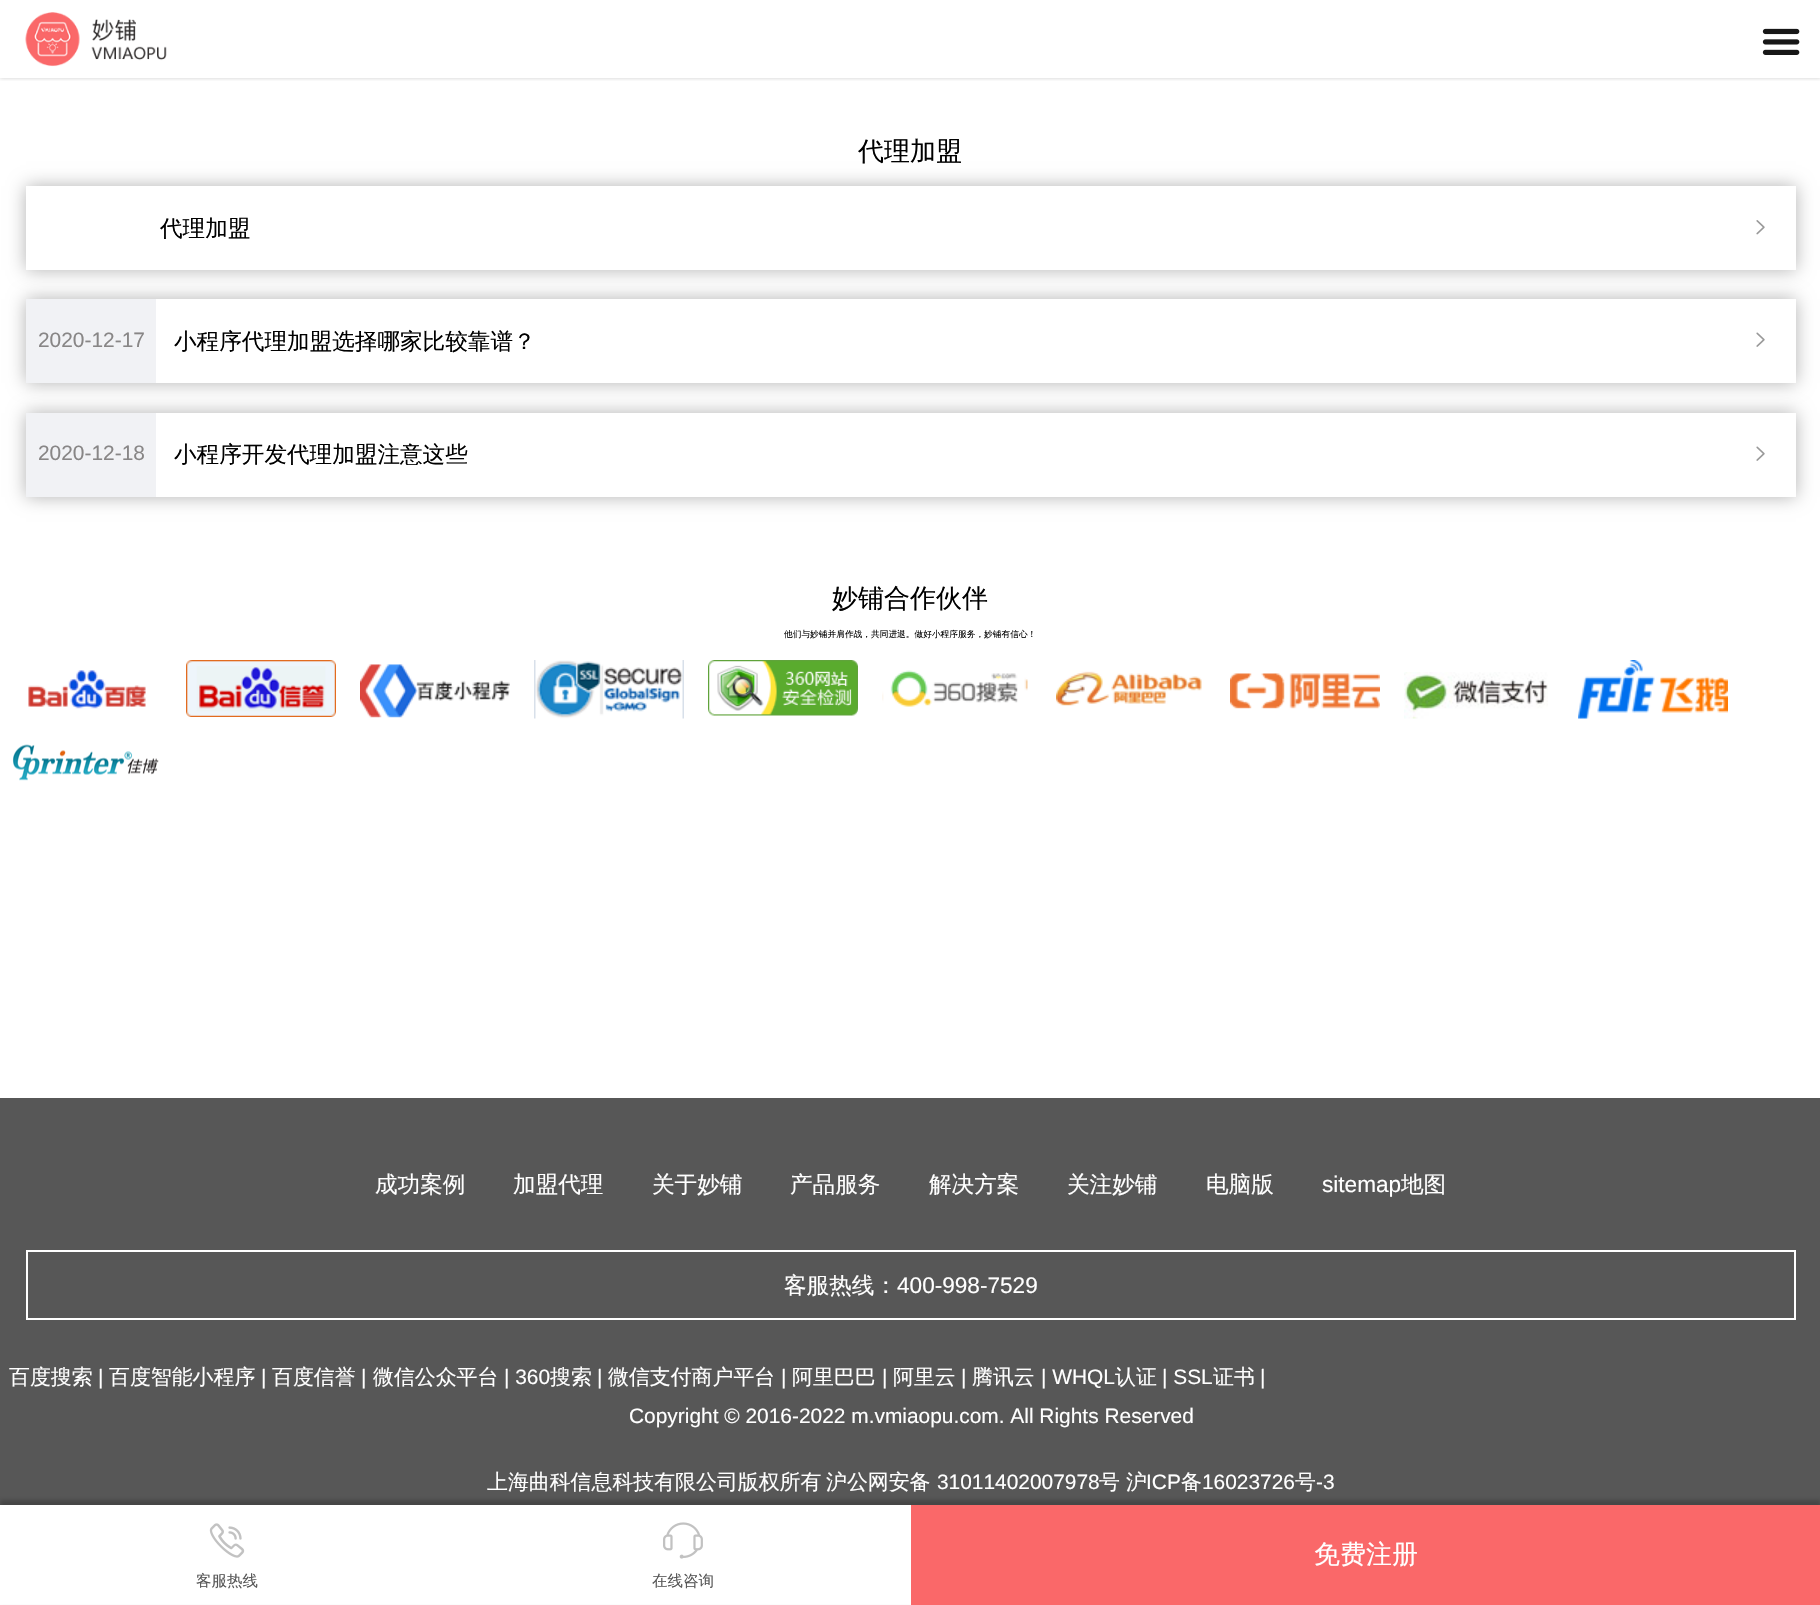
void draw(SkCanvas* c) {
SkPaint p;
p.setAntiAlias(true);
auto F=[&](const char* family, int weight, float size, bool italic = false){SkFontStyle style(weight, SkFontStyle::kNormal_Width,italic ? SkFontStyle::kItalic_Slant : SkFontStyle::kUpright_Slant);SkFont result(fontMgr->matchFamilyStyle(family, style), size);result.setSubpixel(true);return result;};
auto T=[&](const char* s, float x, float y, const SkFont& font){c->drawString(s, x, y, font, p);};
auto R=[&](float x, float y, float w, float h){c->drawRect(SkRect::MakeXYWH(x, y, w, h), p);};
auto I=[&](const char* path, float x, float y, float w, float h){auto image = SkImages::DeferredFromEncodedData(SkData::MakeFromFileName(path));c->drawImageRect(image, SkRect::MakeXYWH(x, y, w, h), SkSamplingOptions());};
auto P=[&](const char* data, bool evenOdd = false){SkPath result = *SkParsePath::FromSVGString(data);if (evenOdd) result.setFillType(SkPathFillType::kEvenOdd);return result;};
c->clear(0xffffffff);
c->save();
c->clipRect(SkRect::MakeXYWH(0,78,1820,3));
p.setColor(0x33000000);
p.setMaskFilter(SkMaskFilter::MakeBlur(kNormal_SkBlurStyle, 2));
c->drawRect(SkRect::MakeXYWH(0,0,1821,78),p);
p.setMaskFilter(nullptr);
c->restore();
I("1.png",25,12,142,55);
I("2.png",1762,28,38,27);
auto f1 = F("WenQuanYi Zen Hei",500,26);
p.setColor(0xff000000);
T("代理加盟",858,160,f1);
c->save();
c->clipPath(P("M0 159h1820v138h-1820zm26 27h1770v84h-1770z",true),true);
p.setColor(0x4d000000);
p.setMaskFilter(SkMaskFilter::MakeBlur(kNormal_SkBlurStyle, 8.5));
c->drawRect(SkRect::MakeXYWH(26,186,1770,84),p);
p.setMaskFilter(nullptr);
c->restore();
auto f2 = F("WenQuanYi Zen Hei",500,22.6);
p.setColor(0xff000000);
T("代理加盟",160,236,f2);
I("3.png",1756,220,9,15);
c->save();
c->clipPath(P("M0 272h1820v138h-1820zm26 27h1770v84h-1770z",true),true);
p.setColor(0x4d000000);
p.setMaskFilter(SkMaskFilter::MakeBlur(kNormal_SkBlurStyle, 8.5));
c->drawRect(SkRect::MakeXYWH(26,299,1770,84),p);
p.setMaskFilter(nullptr);
c->restore();
p.setColor(0xfff1f2f5);
R(26,299,130,84);
auto f3 = F("Liberation Sans",400,20.9);
p.setColor(0xff888686);
T("2020-12-17",38,347,f3);
p.setColor(0xff000000);
T("小程序代理加盟选择哪家比较靠谱？",174,349,f2);
I("4.png",1756,332,9,15);
c->save();
c->clipPath(P("M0 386h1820v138h-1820zm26 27h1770v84h-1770z",true),true);
p.setColor(0x4d000000);
p.setMaskFilter(SkMaskFilter::MakeBlur(kNormal_SkBlurStyle, 8.5));
c->drawRect(SkRect::MakeXYWH(26,413,1770,84),p);
p.setMaskFilter(nullptr);
c->restore();
p.setColor(0xfff1f2f5);
R(26,413,130,84);
p.setColor(0xff888686);
T("2020-12-18",38,460,f3);
p.setColor(0xff000000);
T("小程序开发代理加盟注意这些",174,462,f2);
I("4.png",1756,446,9,15);
T("妙铺合作伙伴",832,607,f1);
auto f4 = F("WenQuanYi Zen Hei",500,8.7);
T("他们与妙铺并肩作战，共同进退。做好小程序服务，妙铺有信心！",784,637,f4);
I("5.png",28,670,118,39);
I("6.png",186,660,150,57);
I("7.png",360,664,150,54);
I("8.png",534,660,150,59);
I("9.png",708,660,150,56);
I("10.png",882,670,146,37);
I("11.png",1056,671,146,35);
I("12.png",1230,673,150,36);
I("13.png",1404,672,144,47);
I("14.png",1578,660,150,59);
I("15.png",12,744,147,37);
p.setColor(0xff575757);
R(0,1098,1820,407);
p.setColor(0xffffffff);
T("成功案例",375,1192,f2);
T("加盟代理",513,1192,f2);
T("关于妙铺",652,1192,f2);
T("产品服务",790,1192,f2);
T("解决方案",929,1192,f2);
T("关注妙铺",1067,1192,f2);
T("电脑版",1206,1192,f2);
auto f5 = F("Liberation Sans",400,22.6);
T("sitemap",1322,1192,f5);
T("地图",1401,1192,f2);
p.setStroke(true);
p.setStrokeWidth(2);
c->drawRect(SkRect::MakeXYWH(27,1251,1768,68),p);
p.setStroke(false);
T("客服热线：",784,1293,f2);
T("400-998-7529",897,1293,f5);
auto f6 = F("WenQuanYi Zen Hei",500,20.9);
T("百度搜索",9,1384,f6);
T("|",98,1384,f3);
T("百度智能小程序",109,1384,f6);
T("|",261,1384,f3);
T("百度信誉",272,1384,f6);
T("|",361,1384,f3);
T("微信公众平台",373,1384,f6);
T("| 360",504,1384,f3);
T("搜索",550,1384,f6);
T("|",597,1384,f3);
T("微信支付商户平台",608,1384,f6);
T("|",781,1384,f3);
T("阿里巴巴",792,1384,f6);
T("|",882,1384,f3);
T("阿里云",893,1384,f6);
T("|",961,1384,f3);
T("腾讯云",972,1384,f6);
T("| WHQL",1041,1384,f3);
T("认证",1115,1384,f6);
T("| SSL",1162,1384,f3);
T("证书",1213,1384,f6);
T("|",1260,1384,f3);
T("Copyright © 2016-2022 m.vmiaopu.com. All Rights Reserved",629,1423,f3);
T("上海曲科信息科技有限公司版权所有",487,1489,f6);
T("沪公网安备",826,1489,f6);
T("31011402007978",937,1489,f3);
T("号",1099,1489,f6);
T("沪",1126,1489,f6);
T("ICP",1146,1489,f3);
T("备",1181,1489,f6);
T("16023726",1202,1489,f3);
T("号",1295,1489,f6);
T("-3",1316,1489,f3);
p.setColor(0x33000000);
p.setMaskFilter(SkMaskFilter::MakeBlur(kNormal_SkBlurStyle, 2));
c->drawRect(SkRect::MakeXYWH(0,1500,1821,101),p);
p.setMaskFilter(nullptr);
p.setColor(0xffffffff);
R(0,1505,911,99);
p.setColor(0xfffa6869);
R(911,1505,909,100);
p.setColor(0xffffffff);
T("免费注册",1314,1563,f1);
I("16.png",209,1523,36,35);
auto f7 = F("WenQuanYi Zen Hei",500,15.5);
p.setColor(0xff575757);
T("客服热线",196,1586,f7);
I("17.png",663,1522,40,37);
T("在线咨询",652,1586,f7);
}
